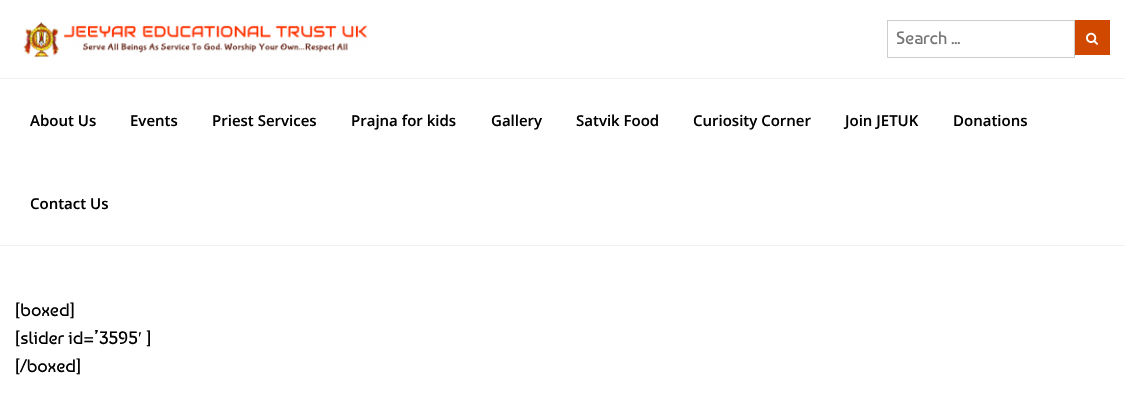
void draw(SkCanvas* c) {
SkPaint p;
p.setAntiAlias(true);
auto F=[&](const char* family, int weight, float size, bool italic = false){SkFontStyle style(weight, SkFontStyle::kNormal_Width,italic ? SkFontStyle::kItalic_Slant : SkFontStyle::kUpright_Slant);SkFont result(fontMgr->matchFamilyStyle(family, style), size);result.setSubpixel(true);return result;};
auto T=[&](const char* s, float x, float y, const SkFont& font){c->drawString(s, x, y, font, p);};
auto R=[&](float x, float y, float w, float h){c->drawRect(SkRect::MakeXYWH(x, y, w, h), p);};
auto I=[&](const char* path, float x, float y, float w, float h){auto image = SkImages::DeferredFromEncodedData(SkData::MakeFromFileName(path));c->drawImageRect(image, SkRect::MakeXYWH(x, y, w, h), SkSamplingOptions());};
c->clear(0xffffffff);
I("1.png",23,22,345,36);
p.setStroke(true);
p.setStrokeWidth(1);
p.setColor(0xffcdcdcd);
c->drawRect(SkRect::MakeXYWH(887.5,20.5,187,37),p);
auto f1 = F("Baumans",400,18);
p.setStroke(false);
p.setColor(0xff757575);
T("Search ...",896,44,f1);
p.setColor(0xffd14900);
R(1075,20,35,35);
I("2.png",1086,32,12,13);
p.setColor(0xfff0f0f0);
R(0,78,1125,1);
R(0,245,1125,1);
auto f2 = F("Open Sans",600,15);
p.setColor(0xff000000);
T("About Us",30,126,f2);
T("Events",130,126,f2);
T("Priest Services",212,126,f2);
T("Prajna for kids",351,126,f2);
T("Gallery",491,126,f2);
T("Satvik Food",576,126,f2);
T("Curiosity Corner",693,126,f2);
T("Join JETUK",845,126,f2);
T("Donations",953,126,f2);
T("Contact Us",30,209,f2);
T("[boxed]",15,316,f1);
T("[slider id=’3595",15,344,f1);
auto f3 = F("Liberation Serif",400,18);
T("′",138,344,f3);
T("]",146,344,f1);
T("[/boxed]",15,372,f1);
}
